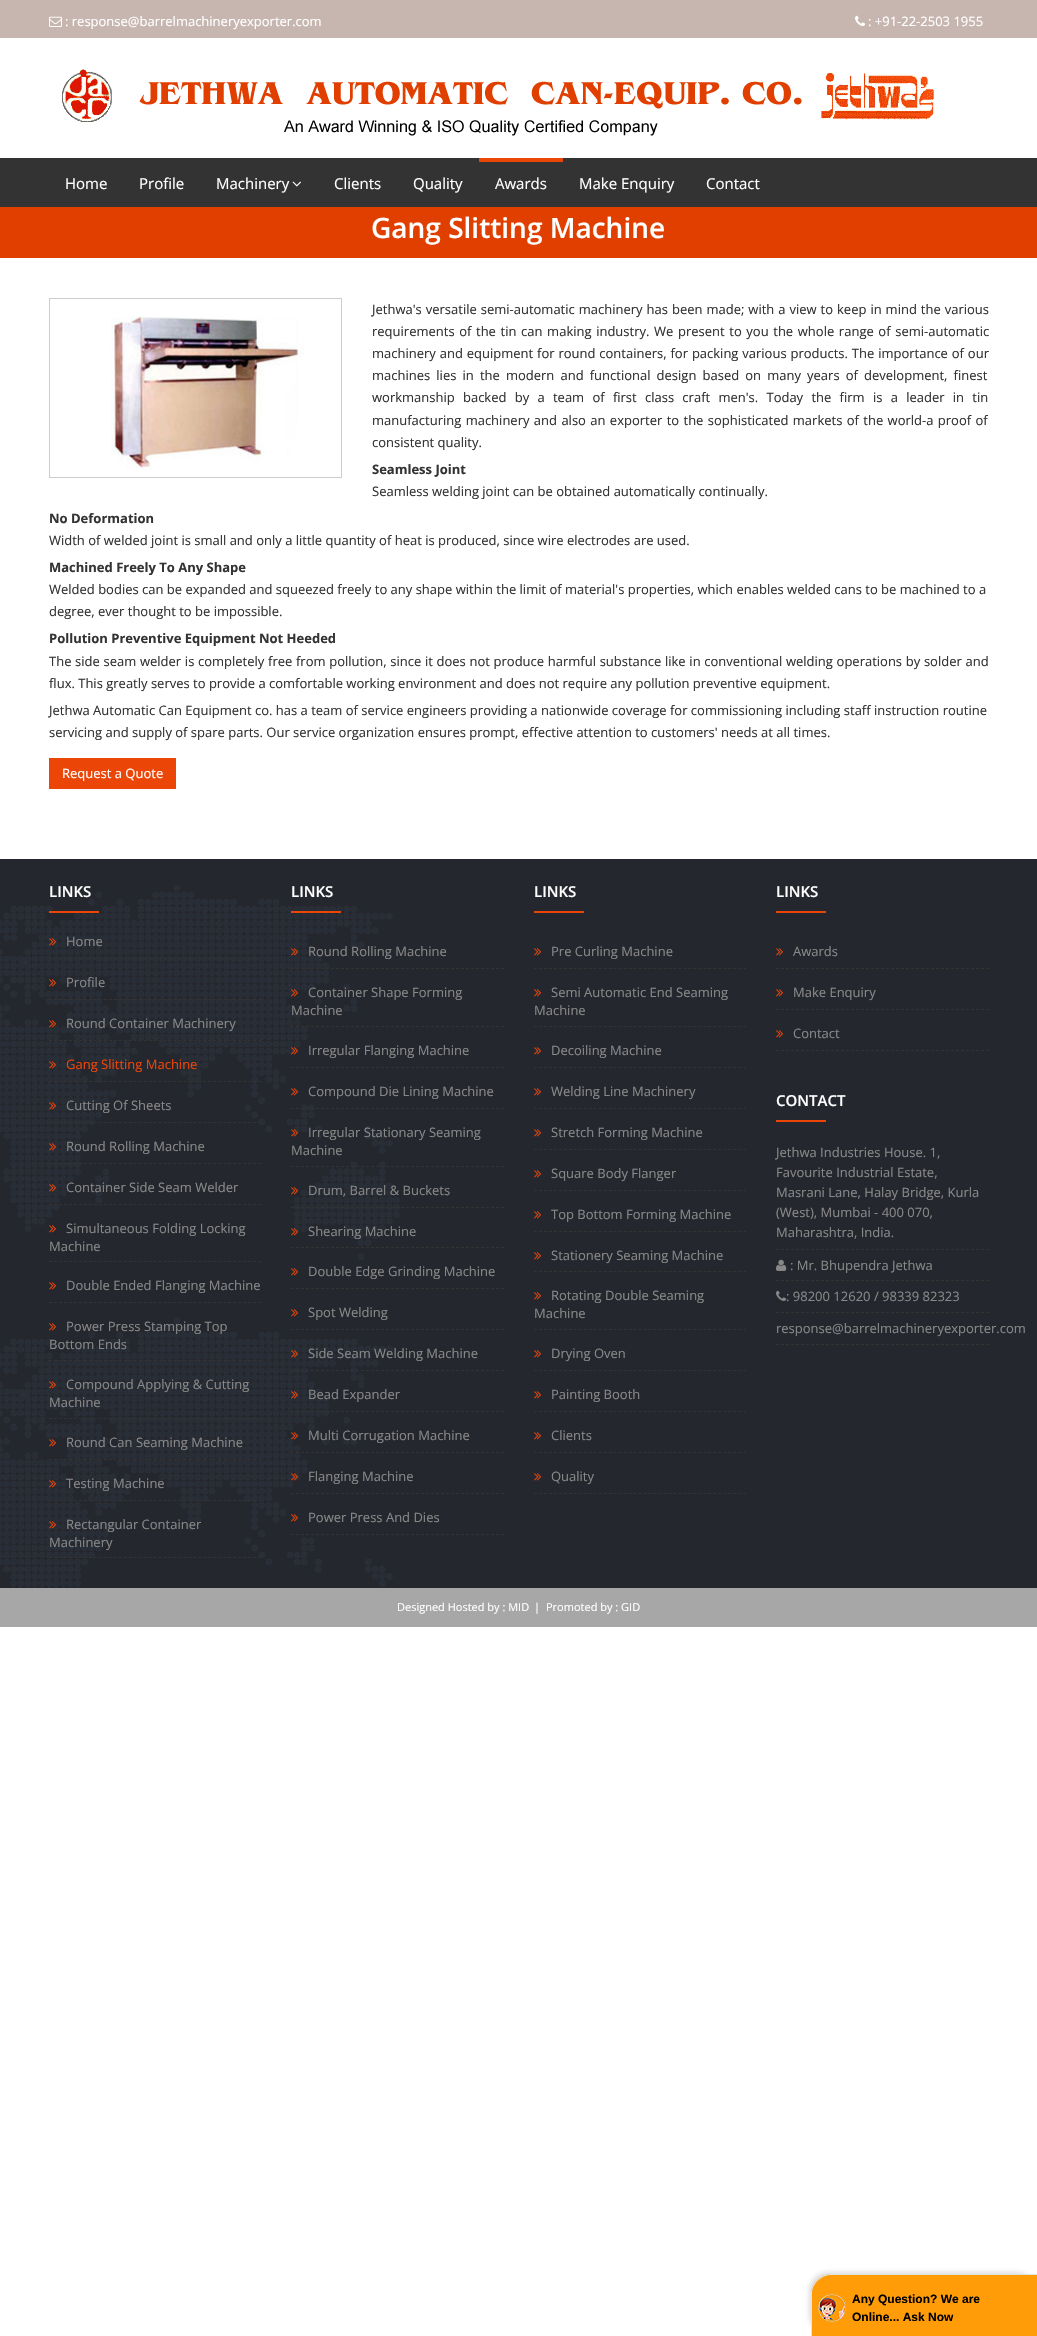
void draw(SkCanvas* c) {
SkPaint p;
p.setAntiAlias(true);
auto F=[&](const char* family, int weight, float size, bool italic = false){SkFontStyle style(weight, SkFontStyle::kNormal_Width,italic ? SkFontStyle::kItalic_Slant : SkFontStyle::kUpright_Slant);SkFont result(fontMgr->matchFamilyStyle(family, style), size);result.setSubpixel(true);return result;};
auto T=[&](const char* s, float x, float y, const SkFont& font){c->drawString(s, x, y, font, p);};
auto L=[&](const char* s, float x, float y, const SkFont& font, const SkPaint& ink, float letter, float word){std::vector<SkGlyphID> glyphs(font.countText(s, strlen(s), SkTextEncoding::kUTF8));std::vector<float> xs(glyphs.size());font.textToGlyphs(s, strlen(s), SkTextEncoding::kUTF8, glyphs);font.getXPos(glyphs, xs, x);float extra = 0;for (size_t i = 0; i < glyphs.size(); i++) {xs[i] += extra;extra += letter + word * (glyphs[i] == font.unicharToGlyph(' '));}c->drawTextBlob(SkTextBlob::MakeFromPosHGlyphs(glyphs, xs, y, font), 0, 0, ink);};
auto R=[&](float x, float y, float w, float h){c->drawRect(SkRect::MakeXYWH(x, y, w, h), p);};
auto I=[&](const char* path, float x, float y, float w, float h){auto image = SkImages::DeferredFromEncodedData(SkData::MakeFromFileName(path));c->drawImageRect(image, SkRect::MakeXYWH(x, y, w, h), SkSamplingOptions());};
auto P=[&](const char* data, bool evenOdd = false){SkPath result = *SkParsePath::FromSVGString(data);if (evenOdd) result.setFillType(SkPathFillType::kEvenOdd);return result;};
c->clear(0xffffffff);
p.setColor(0xffc7b6af);
R(0,0,1037,38);
I("1.png",49,16,13,11);
auto f1 = F("Open Sans",400,13);
p.setColor(0xffffffff);
T(": response@barrelmachineryexporter.com",65,26,f1);
I("2.png",855,15,11,11);
T(": +91-22-2503 1955",868,26,f1);
I("3.png",62,69,872,67);
p.setColor(0xff333333);
R(0,158,1037,49);
auto f2 = F("Open Sans",400,15);
p.setColor(0xffffffff);
T("Home",65,189,f2);
T("Profile",139,189,f2);
T("Machinery",216,189,f2);
I("4.png",292,181,9,6);
T("Clients",334,189,f2);
T("Quality",413,189,f2);
p.setColor(0xffeb4608);
R(479,158,84,4);
p.setColor(0xffffffff);
T("Awards",495,189,f2);
T("Make Enquiry",579,189,f2);
T("Contact",706,189,f2);
p.setColor(0xffe03f00);
R(0,207,1037,51);
auto f3 = F("Open Sans",600,28);
p.setColor(0xffffffff);
T("Gang Slitting Machine",371,238,f3);
p.setStroke(true);
p.setStrokeWidth(1);
p.setColor(0xffcccccc);
c->drawRect(SkRect::MakeXYWH(49.5,298.5,292,179),p);
I("5.png",111,316,193,154);
p.setStroke(false);
p.setColor(0xff333333);
L("Jethwa's versatile semi-automatic machinery has been made; with a view to keep in mind the various",372,314,f1,p,0,.6);
L("requirements of the tin can making industry. We present to you the whole range of semi-automatic",372,336,f1,p,0,1.25);
L("machinery and equipment for round containers, for packing various products. The importance of our",372,358,f1,p,0,.5);
L("machines lies in the modern and functional design based on many years of development, finest",372,380,f1,p,0,2.75);
L("workmanship backed by a team of first class craft men's. Today the firm is a leader in tin",372,402,f1,p,0,4.9);
L("manufacturing machinery and also an exporter to the sophisticated markets of the world-a proof of",372,425,f1,p,0,1);
T("consistent quality.",372,447,f1);
auto f4 = F("Open Sans",700,13);
T("Seamless Joint",372,474,f4);
T("Seamless welding joint can be obtained automatically continually.",372,496,f1);
T("No Deformation",49,523,f4);
T("Width of welded joint is small and only a little quantity of heat is produced, since wire electrodes are used.",49,545,f1);
T("Machined Freely To Any Shape",49,572,f4);
T("Welded bodies can be expanded and squeezed freely to any shape within the limit of material's properties, which enables welded cans to be machined to a",49,594,f1);
T("degree, ever thought to be impossible.",49,616,f1);
T("Pollution Preventive Equipment Not Heeded",49,643,f4);
L("The side seam welder is completely free from pollution, since it does not produce harmful substance like in conventional welding operations by solder and",49,666,f1,p,0,.3);
T("flux. This greatly serves to provide a comfortable working environment and does not require any pollution preventive equipment.",49,688,f1);
T("Jethwa Automatic Can Equipment co. has a team of service engineers providing a nationwide coverage for commissioning including staff instruction routine",49,715,f1);
T("servicing and supply of spare parts. Our service organization ensures prompt, effective attention to customers' needs at all times.",49,737,f1);
p.setColor(0xffeb4608);
R(49,758,127,31);
p.setColor(0xffffffff);
T("Request a Quote",62,778,f1);
p.setColor(0xff25272e);
R(0,859,1037,729);
I("6.png",0,885,400,703);
auto f5 = F("Open Sans",600,15);
p.setColor(0xffffffff);
T("LINKS",49,897,f5);
p.setColor(0xffeb4608);
R(49,911,50,2);
p.setStroke(true);
p.setColor(0xff333333);
p.setPathEffect(SkDashPathEffect::Make({{3,1.98f}}, 0));
c->drawPath(P("M49 958.5h212"),p);
p.setPathEffect(nullptr);
I("7.png",49,938,8,8);
p.setStroke(false);
p.setColor(0xff888888);
T("Home",66,946,f1);
p.setStroke(true);
p.setColor(0xff333333);
p.setPathEffect(SkDashPathEffect::Make({{3,1.98f}}, 0));
c->drawPath(P("M49 999.5h212"),p);
p.setPathEffect(nullptr);
I("8.png",49,979,8,8);
p.setStroke(false);
p.setColor(0xff888888);
T("Profile",66,987,f1);
p.setStroke(true);
p.setColor(0xff333333);
p.setPathEffect(SkDashPathEffect::Make({{3,1.98f}}, 0));
c->drawPath(P("M49 1040.5h212"),p);
p.setPathEffect(nullptr);
I("9.png",49,1020,8,8);
p.setStroke(false);
p.setColor(0xff888888);
T("Round Container Machinery",66,1028,f1);
p.setStroke(true);
p.setColor(0xff333333);
p.setPathEffect(SkDashPathEffect::Make({{3,1.98f}}, 0));
c->drawPath(P("M49 1081.5h212"),p);
p.setPathEffect(nullptr);
I("10.png",49,1061,8,8);
p.setStroke(false);
p.setColor(0xffeb4608);
T("Gang Slitting Machine",66,1069,f1);
p.setStroke(true);
p.setColor(0xff333333);
p.setPathEffect(SkDashPathEffect::Make({{3,1.98f}}, 0));
c->drawPath(P("M49 1122.5h212"),p);
p.setPathEffect(nullptr);
I("11.png",49,1102,8,8);
p.setStroke(false);
p.setColor(0xff888888);
T("Cutting Of Sheets",66,1110,f1);
p.setStroke(true);
p.setColor(0xff333333);
p.setPathEffect(SkDashPathEffect::Make({{3,1.98f}}, 0));
c->drawPath(P("M49 1163.5h212"),p);
p.setPathEffect(nullptr);
I("12.png",49,1143,8,8);
p.setStroke(false);
p.setColor(0xff888888);
T("Round Rolling Machine",66,1151,f1);
p.setStroke(true);
p.setColor(0xff333333);
p.setPathEffect(SkDashPathEffect::Make({{3,1.98f}}, 0));
c->drawPath(P("M49 1204.5h212"),p);
p.setPathEffect(nullptr);
I("13.png",49,1184,8,8);
p.setStroke(false);
p.setColor(0xff888888);
T("Container Side Seam Welder",66,1192,f1);
p.setStroke(true);
p.setColor(0xff333333);
p.setPathEffect(SkDashPathEffect::Make({{3,1.98f}}, 0));
c->drawPath(P("M49 1261.5h212"),p);
p.setPathEffect(nullptr);
I("8.png",49,1225,8,8);
p.setStroke(false);
p.setColor(0xff888888);
T("Simultaneous Folding Locking",66,1233,f1);
T("Machine",49,1251,f1);
p.setStroke(true);
p.setColor(0xff333333);
p.setPathEffect(SkDashPathEffect::Make({{3,1.98f}}, 0));
c->drawPath(P("M49 1302.5h212"),p);
p.setPathEffect(nullptr);
I("8.png",49,1282,8,8);
p.setStroke(false);
p.setColor(0xff888888);
T("Double Ended Flanging Machine",66,1290,f1);
p.setStroke(true);
p.setColor(0xff333333);
p.setPathEffect(SkDashPathEffect::Make({{3,1.98f}}, 0));
c->drawPath(P("M49 1360.5h212"),p);
p.setPathEffect(nullptr);
I("8.png",49,1323,8,8);
p.setStroke(false);
p.setColor(0xff888888);
T("Power Press Stamping Top",66,1331,f1);
T("Bottom Ends",49,1349,f1);
p.setStroke(true);
p.setColor(0xff333333);
p.setPathEffect(SkDashPathEffect::Make({{3,1.98f}}, 0));
c->drawPath(P("M49 1418.5h212"),p);
p.setPathEffect(nullptr);
I("14.png",49,1381,8,8);
p.setStroke(false);
p.setColor(0xff888888);
T("Compound Applying & Cutting",66,1389,f1);
T("Machine",49,1407,f1);
p.setStroke(true);
p.setColor(0xff333333);
p.setPathEffect(SkDashPathEffect::Make({{3,1.98f}}, 0));
c->drawPath(P("M49 1459.5h212"),p);
p.setPathEffect(nullptr);
I("8.png",49,1439,8,8);
p.setStroke(false);
p.setColor(0xff888888);
T("Round Can Seaming Machine",66,1447,f1);
p.setStroke(true);
p.setColor(0xff333333);
p.setPathEffect(SkDashPathEffect::Make({{3,1.98f}}, 0));
c->drawPath(P("M49 1500.5h212"),p);
p.setPathEffect(nullptr);
I("15.png",49,1480,8,8);
p.setStroke(false);
p.setColor(0xff888888);
T("Testing Machine",66,1488,f1);
p.setStroke(true);
p.setColor(0xff333333);
p.setPathEffect(SkDashPathEffect::Make({{3,1.98f}}, 0));
c->drawPath(P("M49 1557.5h212"),p);
p.setPathEffect(nullptr);
I("16.png",49,1521,8,8);
p.setStroke(false);
p.setColor(0xff888888);
T("Rectangular Container",66,1529,f1);
T("Machinery",49,1547,f1);
p.setColor(0xffffffff);
T("LINKS",291,897,f5);
p.setColor(0xffeb4608);
R(291,911,50,2);
p.setStroke(true);
p.setColor(0xff333333);
p.setPathEffect(SkDashPathEffect::Make({{3,2}}, 0));
c->drawPath(P("M291 968.5h213"),p);
p.setPathEffect(nullptr);
I("17.png",291,948,8,8);
p.setStroke(false);
p.setColor(0xff888888);
T("Round Rolling Machine",308,956,f1);
p.setStroke(true);
p.setColor(0xff333333);
p.setPathEffect(SkDashPathEffect::Make({{3,2}}, 0));
c->drawPath(P("M291 1026.5h213"),p);
p.setPathEffect(nullptr);
I("18.png",291,989,8,8);
p.setStroke(false);
p.setColor(0xff888888);
T("Container Shape Forming",308,997,f1);
T("Machine",291,1015,f1);
p.setStroke(true);
p.setColor(0xff333333);
p.setPathEffect(SkDashPathEffect::Make({{3,2}}, 0));
c->drawPath(P("M291 1067.5h213"),p);
p.setPathEffect(nullptr);
I("19.png",291,1047,8,8);
p.setStroke(false);
p.setColor(0xff888888);
T("Irregular Flanging Machine",308,1055,f1);
p.setStroke(true);
p.setColor(0xff333333);
p.setPathEffect(SkDashPathEffect::Make({{3,2}}, 0));
c->drawPath(P("M291 1108.5h213"),p);
p.setPathEffect(nullptr);
I("8.png",291,1088,8,8);
p.setStroke(false);
p.setColor(0xff888888);
T("Compound Die Lining Machine",308,1096,f1);
p.setStroke(true);
p.setColor(0xff333333);
p.setPathEffect(SkDashPathEffect::Make({{3,2}}, 0));
c->drawPath(P("M291 1166.5h213"),p);
p.setPathEffect(nullptr);
I("20.png",291,1129,8,8);
p.setStroke(false);
p.setColor(0xff888888);
T("Irregular Stationary Seaming",308,1137,f1);
T("Machine",291,1155,f1);
p.setStroke(true);
p.setColor(0xff333333);
p.setPathEffect(SkDashPathEffect::Make({{3,2}}, 0));
c->drawPath(P("M291 1207.5h213"),p);
p.setPathEffect(nullptr);
I("8.png",291,1187,8,8);
p.setStroke(false);
p.setColor(0xff888888);
T("Drum, Barrel & Buckets",308,1195,f1);
p.setStroke(true);
p.setColor(0xff333333);
p.setPathEffect(SkDashPathEffect::Make({{3,2}}, 0));
c->drawPath(P("M291 1247.5h213"),p);
p.setPathEffect(nullptr);
I("21.png",291,1228,8,8);
p.setStroke(false);
p.setColor(0xff888888);
T("Shearing Machine",308,1236,f1);
p.setStroke(true);
p.setColor(0xff333333);
p.setPathEffect(SkDashPathEffect::Make({{3,2}}, 0));
c->drawPath(P("M291 1288.5h213"),p);
p.setPathEffect(nullptr);
I("8.png",291,1268,8,8);
p.setStroke(false);
p.setColor(0xff888888);
T("Double Edge Grinding Machine",308,1276,f1);
p.setStroke(true);
p.setColor(0xff333333);
p.setPathEffect(SkDashPathEffect::Make({{3,2}}, 0));
c->drawPath(P("M291 1329.5h213"),p);
p.setPathEffect(nullptr);
I("8.png",291,1309,8,8);
p.setStroke(false);
p.setColor(0xff888888);
T("Spot Welding",308,1317,f1);
p.setStroke(true);
p.setColor(0xff333333);
p.setPathEffect(SkDashPathEffect::Make({{3,2}}, 0));
c->drawPath(P("M291 1370.5h213"),p);
p.setPathEffect(nullptr);
I("22.png",291,1350,8,8);
p.setStroke(false);
p.setColor(0xff888888);
T("Side Seam Welding Machine",308,1358,f1);
p.setStroke(true);
p.setColor(0xff333333);
p.setPathEffect(SkDashPathEffect::Make({{3,2}}, 0));
c->drawPath(P("M291 1411.5h213"),p);
p.setPathEffect(nullptr);
I("23.png",291,1391,8,8);
p.setStroke(false);
p.setColor(0xff888888);
T("Bead Expander",308,1399,f1);
p.setStroke(true);
p.setColor(0xff333333);
p.setPathEffect(SkDashPathEffect::Make({{3,2}}, 0));
c->drawPath(P("M291 1452.5h213"),p);
p.setPathEffect(nullptr);
I("24.png",291,1432,8,8);
p.setStroke(false);
p.setColor(0xff888888);
T("Multi Corrugation Machine",308,1440,f1);
p.setStroke(true);
p.setColor(0xff333333);
p.setPathEffect(SkDashPathEffect::Make({{3,2}}, 0));
c->drawPath(P("M291 1493.5h213"),p);
p.setPathEffect(nullptr);
I("25.png",291,1473,8,8);
p.setStroke(false);
p.setColor(0xff888888);
T("Flanging Machine",308,1481,f1);
p.setStroke(true);
p.setColor(0xff333333);
p.setPathEffect(SkDashPathEffect::Make({{3,2}}, 0));
c->drawPath(P("M291 1534.5h213"),p);
p.setPathEffect(nullptr);
I("8.png",291,1514,8,8);
p.setStroke(false);
p.setColor(0xff888888);
T("Power Press And Dies",308,1522,f1);
p.setColor(0xffffffff);
T("LINKS",534,897,f5);
p.setColor(0xffeb4608);
R(534,911,50,2);
p.setStroke(true);
p.setColor(0xff333333);
p.setPathEffect(SkDashPathEffect::Make({{3,1.98f}}, 0));
c->drawPath(P("M534 968.5h212"),p);
p.setPathEffect(nullptr);
I("8.png",534,948,8,8);
p.setStroke(false);
p.setColor(0xff888888);
T("Pre Curling Machine",551,956,f1);
p.setStroke(true);
p.setColor(0xff333333);
p.setPathEffect(SkDashPathEffect::Make({{3,1.98f}}, 0));
c->drawPath(P("M534 1026.5h212"),p);
p.setPathEffect(nullptr);
I("8.png",534,989,8,8);
p.setStroke(false);
p.setColor(0xff888888);
T("Semi Automatic End Seaming",551,997,f1);
T("Machine",534,1015,f1);
p.setStroke(true);
p.setColor(0xff333333);
p.setPathEffect(SkDashPathEffect::Make({{3,1.98f}}, 0));
c->drawPath(P("M534 1067.5h212"),p);
p.setPathEffect(nullptr);
I("8.png",534,1047,8,8);
p.setStroke(false);
p.setColor(0xff888888);
T("Decoiling Machine",551,1055,f1);
p.setStroke(true);
p.setColor(0xff333333);
p.setPathEffect(SkDashPathEffect::Make({{3,1.98f}}, 0));
c->drawPath(P("M534 1108.5h212"),p);
p.setPathEffect(nullptr);
I("8.png",534,1088,8,8);
p.setStroke(false);
p.setColor(0xff888888);
T("Welding Line Machinery",551,1096,f1);
p.setStroke(true);
p.setColor(0xff333333);
p.setPathEffect(SkDashPathEffect::Make({{3,1.98f}}, 0));
c->drawPath(P("M534 1149.5h212"),p);
p.setPathEffect(nullptr);
I("8.png",534,1129,8,8);
p.setStroke(false);
p.setColor(0xff888888);
T("Stretch Forming Machine",551,1137,f1);
p.setStroke(true);
p.setColor(0xff333333);
p.setPathEffect(SkDashPathEffect::Make({{3,1.98f}}, 0));
c->drawPath(P("M534 1190.5h212"),p);
p.setPathEffect(nullptr);
I("8.png",534,1170,8,8);
p.setStroke(false);
p.setColor(0xff888888);
T("Square Body Flanger",551,1178,f1);
p.setStroke(true);
p.setColor(0xff333333);
p.setPathEffect(SkDashPathEffect::Make({{3,1.98f}}, 0));
c->drawPath(P("M534 1231.5h212"),p);
p.setPathEffect(nullptr);
I("8.png",534,1211,8,8);
p.setStroke(false);
p.setColor(0xff888888);
T("Top Bottom Forming Machine",551,1219,f1);
p.setStroke(true);
p.setColor(0xff333333);
p.setPathEffect(SkDashPathEffect::Make({{3,1.98f}}, 0));
c->drawPath(P("M534 1271.5h212"),p);
p.setPathEffect(nullptr);
I("8.png",534,1252,8,8);
p.setStroke(false);
p.setColor(0xff888888);
T("Stationery Seaming Machine",551,1260,f1);
p.setStroke(true);
p.setColor(0xff333333);
p.setPathEffect(SkDashPathEffect::Make({{3,1.98f}}, 0));
c->drawPath(P("M534 1329.5h212"),p);
p.setPathEffect(nullptr);
I("8.png",534,1292,8,8);
p.setStroke(false);
p.setColor(0xff888888);
T("Rotating Double Seaming",551,1300,f1);
T("Machine",534,1318,f1);
p.setStroke(true);
p.setColor(0xff333333);
p.setPathEffect(SkDashPathEffect::Make({{3,1.98f}}, 0));
c->drawPath(P("M534 1370.5h212"),p);
p.setPathEffect(nullptr);
I("8.png",534,1350,8,8);
p.setStroke(false);
p.setColor(0xff888888);
T("Drying Oven",551,1358,f1);
p.setStroke(true);
p.setColor(0xff333333);
p.setPathEffect(SkDashPathEffect::Make({{3,1.98f}}, 0));
c->drawPath(P("M534 1411.5h212"),p);
p.setPathEffect(nullptr);
I("8.png",534,1391,8,8);
p.setStroke(false);
p.setColor(0xff888888);
T("Painting Booth",551,1399,f1);
p.setStroke(true);
p.setColor(0xff333333);
p.setPathEffect(SkDashPathEffect::Make({{3,1.98f}}, 0));
c->drawPath(P("M534 1452.5h212"),p);
p.setPathEffect(nullptr);
I("8.png",534,1432,8,8);
p.setStroke(false);
p.setColor(0xff888888);
T("Clients",551,1440,f1);
p.setStroke(true);
p.setColor(0xff333333);
p.setPathEffect(SkDashPathEffect::Make({{3,1.98f}}, 0));
c->drawPath(P("M534 1493.5h212"),p);
p.setPathEffect(nullptr);
I("8.png",534,1473,8,8);
p.setStroke(false);
p.setColor(0xff888888);
T("Quality",551,1481,f1);
p.setColor(0xffffffff);
T("LINKS",776,897,f5);
p.setColor(0xffeb4608);
R(776,911,50,2);
p.setStroke(true);
p.setColor(0xff333333);
p.setPathEffect(SkDashPathEffect::Make({{3,2}}, 0));
c->drawPath(P("M776 968.5h213"),p);
p.setPathEffect(nullptr);
I("8.png",776,948,8,8);
p.setStroke(false);
p.setColor(0xff888888);
T("Awards",793,956,f1);
p.setStroke(true);
p.setColor(0xff333333);
p.setPathEffect(SkDashPathEffect::Make({{3,2}}, 0));
c->drawPath(P("M776 1009.5h213"),p);
p.setPathEffect(nullptr);
I("8.png",776,989,8,8);
p.setStroke(false);
p.setColor(0xff888888);
T("Make Enquiry",793,997,f1);
p.setStroke(true);
p.setColor(0xff333333);
p.setPathEffect(SkDashPathEffect::Make({{3,2}}, 0));
c->drawPath(P("M776 1050.5h213"),p);
p.setPathEffect(nullptr);
I("8.png",776,1030,8,8);
p.setStroke(false);
p.setColor(0xff888888);
T("Contact",793,1038,f1);
p.setColor(0xffffffff);
T("CONTACT",776,1106,f5);
p.setColor(0xffeb4608);
R(776,1120,50,2);
p.setStroke(true);
p.setColor(0xff333333);
p.setPathEffect(SkDashPathEffect::Make({{3,2}}, 0));
c->drawPath(P("M776 1249.5h213"),p);
p.setPathEffect(nullptr);
p.setStroke(false);
p.setColor(0xff888888);
T("Jethwa Industries House. 1,",776,1157,f1);
T("Favourite Industrial Estate,",776,1177,f1);
T("Masrani Lane, Halay Bridge, Kurla",776,1197,f1);
T("(West), Mumbai - 400 070,",776,1217,f1);
T("Maharashtra, India.",776,1237,f1);
p.setStroke(true);
p.setColor(0xff333333);
p.setPathEffect(SkDashPathEffect::Make({{3,2}}, 0));
c->drawPath(P("M776 1280.5h213"),p);
p.setPathEffect(nullptr);
I("26.png",776,1259,11,12);
p.setStroke(false);
p.setColor(0xff888888);
T(": Mr. Bhupendra Jethwa",790,1270,f1);
p.setStroke(true);
p.setColor(0xff333333);
p.setPathEffect(SkDashPathEffect::Make({{3,2}}, 0));
c->drawPath(P("M776 1312.5h213"),p);
p.setPathEffect(nullptr);
I("27.png",776,1290,11,11);
p.setStroke(false);
p.setColor(0xff888888);
T(": 98200 12620 / 98339 82323",786,1301,f1);
p.setStroke(true);
p.setColor(0xff333333);
p.setPathEffect(SkDashPathEffect::Make({{3,2}}, 0));
c->drawPath(P("M776 1344.5h213"),p);
p.setPathEffect(nullptr);
p.setStroke(false);
p.setColor(0xff888888);
T("response@barrelmachineryexporter.com",776,1333,f1);
p.setColor(0xffa7a7a7);
R(0,1588,1037,39);
auto f6 = F("Open Sans",400,11);
p.setColor(0xffffffff);
T("Designed Hosted by : MID",397,1611,f6);
T("|",534,1611,f6);
T("Promoted by : GID",546,1611,f6);
p.setColor(0x2b323232);
p.setMaskFilter(SkMaskFilter::MakeBlur(kNormal_SkBlurStyle, 2.5));
c->drawRoundRect(SkRect::MakeXYWH(809,2272,226,62),20,20,p);
p.setMaskFilter(nullptr);
p.setColor(0xffff9c08);
c->drawPath(P("M831 2274h206v62h-226v-42c0-11 9-20 20-20z"),p);
p.setColor(0xffe3e3e3);
c->drawPath(P("M831 2274h206v62h-226v-42c0-11 9-20 20-20zm0 1h206v61h-225v-42c0-10 9-19 19-19z",true),p);
I("28.png",818,2294,28,28);
auto f7 = F("Liberation Sans",700,12);
p.setColor(0xff000000);
T("Any Question? We are",852,2303,f7);
T("Online... Ask Now",852,2321,f7);
}
